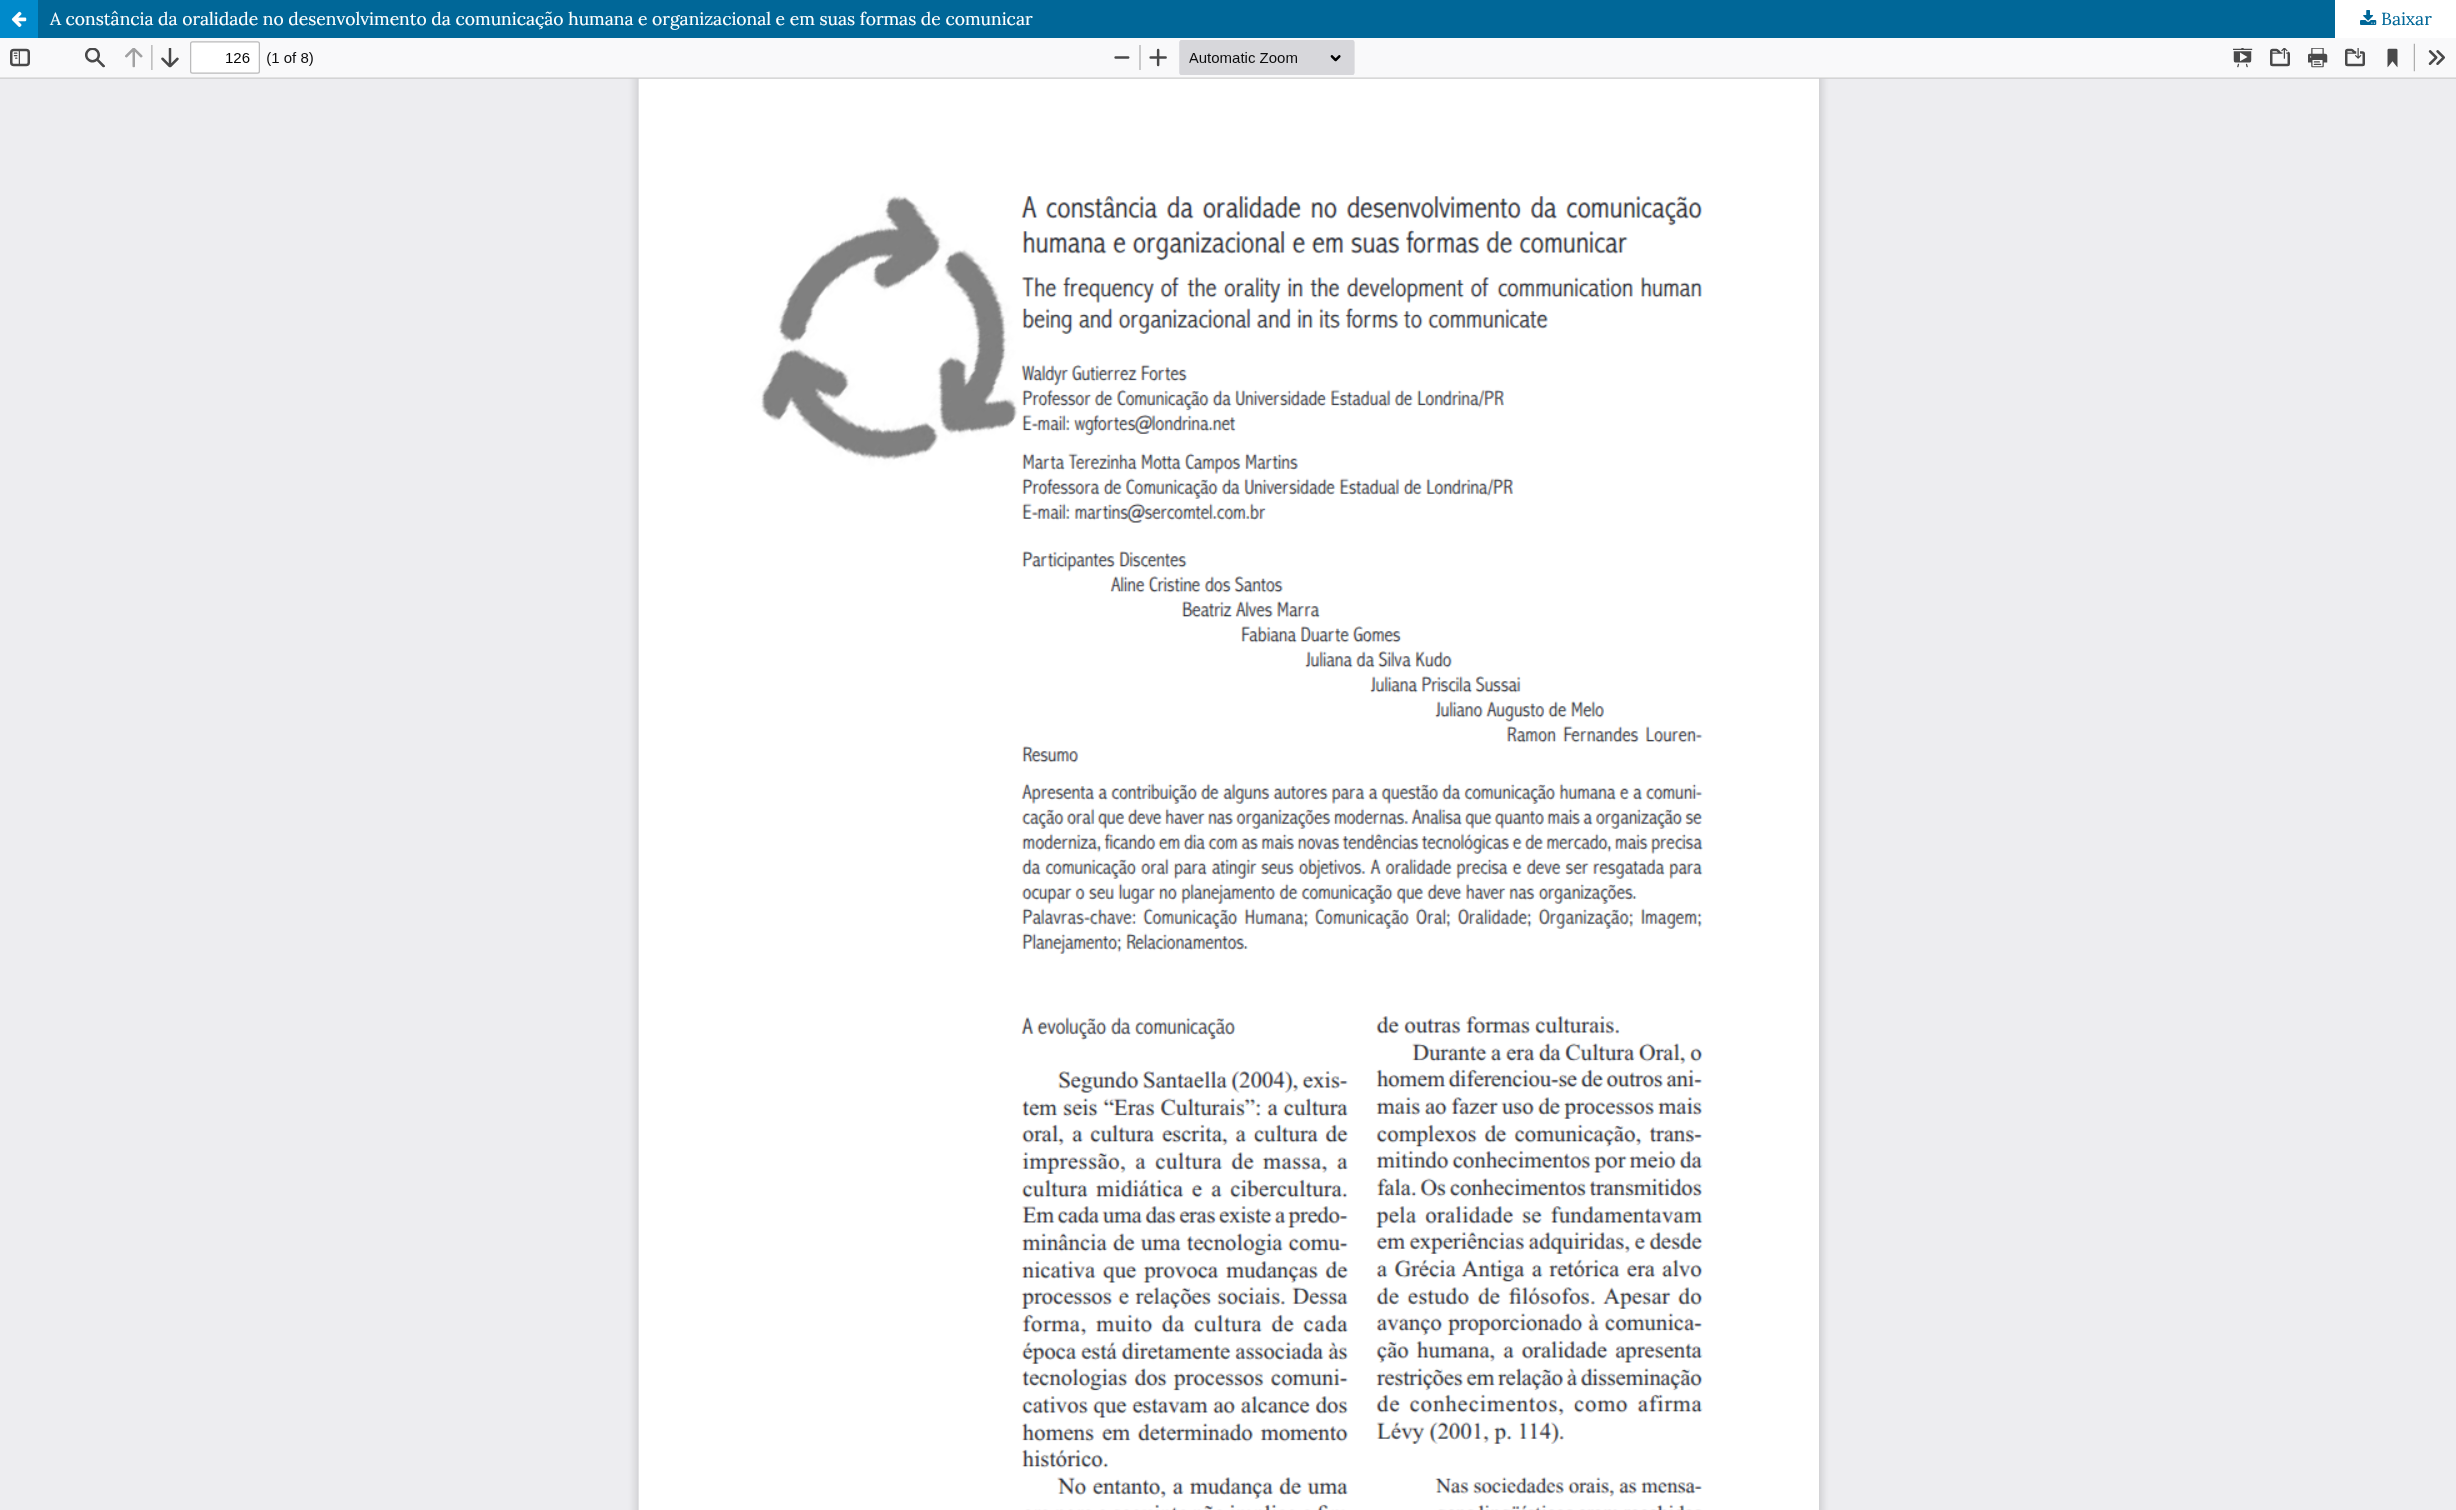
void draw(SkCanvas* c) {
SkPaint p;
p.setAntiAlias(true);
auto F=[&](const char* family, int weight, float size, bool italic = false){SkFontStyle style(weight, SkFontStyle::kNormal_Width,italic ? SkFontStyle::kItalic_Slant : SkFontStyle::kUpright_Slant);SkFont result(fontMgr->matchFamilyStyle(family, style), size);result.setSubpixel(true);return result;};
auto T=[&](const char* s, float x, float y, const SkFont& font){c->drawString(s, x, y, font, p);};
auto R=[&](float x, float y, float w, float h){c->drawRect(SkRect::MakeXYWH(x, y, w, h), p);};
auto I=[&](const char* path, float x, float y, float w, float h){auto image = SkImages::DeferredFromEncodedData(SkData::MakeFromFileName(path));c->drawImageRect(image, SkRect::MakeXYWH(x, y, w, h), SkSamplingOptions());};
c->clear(0xffffffff);
p.setColor(0xff006798);
R(38,0,2297,38);
p.setColor(0xff008acb);
R(0,0,38,38);
I("1.png",11,11,16,16);
auto f1 = F("Lora",400,17.5);
p.setColor(0xffffffff);
T("A constância da oralidade no desenvolvimento da comunicação humana e organizacional e em suas formas de comunicar",50,25,f1);
I("2.png",2360,10,17,15);
p.setColor(0xff006798);
T("Baixar",2381,25,f1);
I("3.png",0,38,2456,1472);
}
